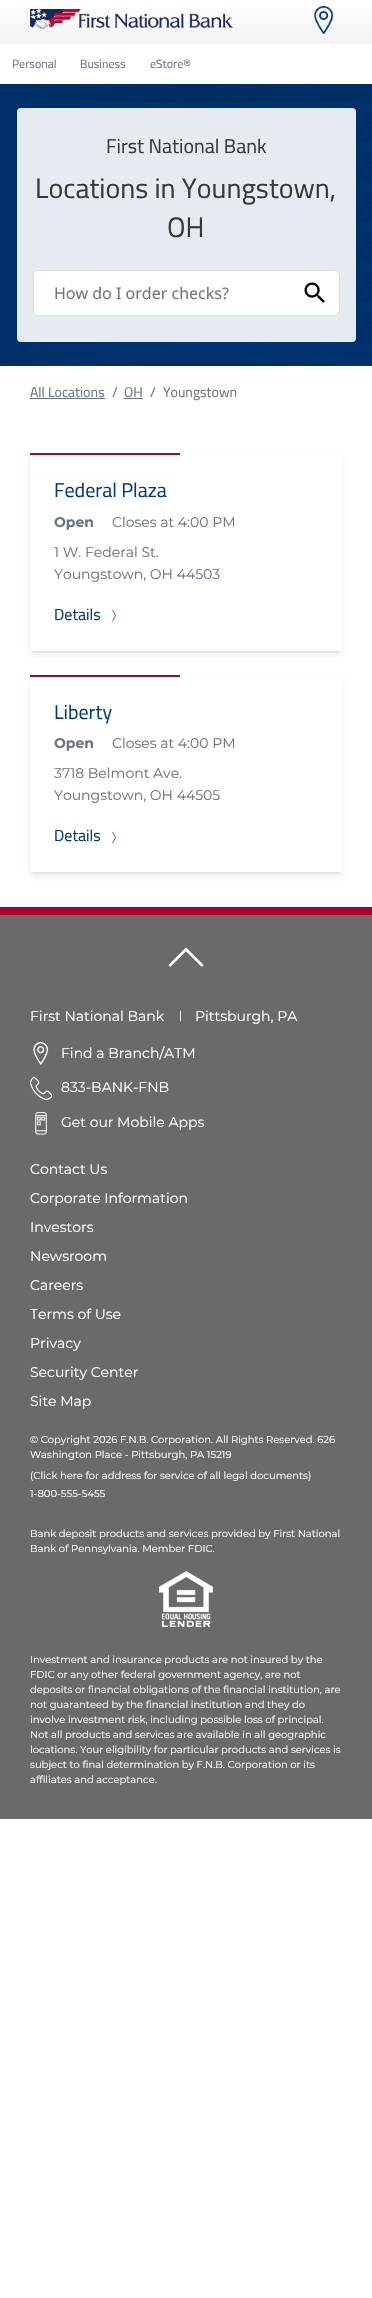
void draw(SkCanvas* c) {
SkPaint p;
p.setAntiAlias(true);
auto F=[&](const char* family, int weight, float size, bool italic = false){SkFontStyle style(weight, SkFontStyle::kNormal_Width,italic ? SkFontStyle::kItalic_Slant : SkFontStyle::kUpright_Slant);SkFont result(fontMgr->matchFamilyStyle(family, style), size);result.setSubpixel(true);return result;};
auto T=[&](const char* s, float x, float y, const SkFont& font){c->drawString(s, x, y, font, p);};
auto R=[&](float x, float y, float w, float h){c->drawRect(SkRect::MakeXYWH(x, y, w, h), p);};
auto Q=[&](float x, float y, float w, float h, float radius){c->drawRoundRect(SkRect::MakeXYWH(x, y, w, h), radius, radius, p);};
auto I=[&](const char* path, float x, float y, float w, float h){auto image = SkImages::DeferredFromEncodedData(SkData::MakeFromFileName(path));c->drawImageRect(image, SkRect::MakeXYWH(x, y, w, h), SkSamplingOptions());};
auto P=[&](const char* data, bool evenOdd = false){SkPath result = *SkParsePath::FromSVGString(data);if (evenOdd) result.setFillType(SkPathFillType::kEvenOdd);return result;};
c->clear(0xffffffff);
{
const SkColor colors[] = {0xffffffff,0xffe7e7e7};
const float stops[] = {0,1};
const SkPoint ends[] = {{186,0}, {186,84}};
p.setShader(SkGradientShader::MakeLinear(ends, colors, stops, 2, SkTileMode::kClamp));
p.setAlpha(255);
}
R(0,9,372,35);
I("1.png",30,9,203,20);
I("2.png",314,6,20,28);
auto f1 = F("Titillium Web",400,12);
p.setShader(nullptr);
p.setColor(0xff6b7280);
T("Personal",12,68,f1);
T("Business",80,68,f1);
T("eStore®",150,68,f1);
I("3.png",0,84,372,282);
p.setColor(0xe6ffffff);
Q(17,108,339,234,4);
auto f2 = F("Titillium Web",400,20);
p.setColor(0xff373a36);
T("First National Bank",106,153,f2);
auto f3 = F("Titillium Web",400,28);
T("Locations in Youngstown,",35,198,f3);
T("OH",167,237,f3);
p.setColor(0xffffffff);
c->drawRoundRect(SkRect::MakeXYWH(33.5,270.5,306,45),5.5,5.5,p);
p.setStroke(true);
p.setStrokeWidth(1);
p.setColor(0xffdcdcdc);
c->drawRoundRect(SkRect::MakeXYWH(33.5,270.5,306,45),5.5,5.5,p);
p.setStroke(false);
p.setColor(0xffffffff);
c->drawPath(P("M39 271h252v44h-252c-3 0-5-2-5-5v-34c0-3 2-5 5-5z"),p);
auto f4 = F("Noto Sans",400,16);
p.setColor(0xff757575);
T("How do I order checks?",54,299,f4);
I("4.png",304,282,21,21);
auto f5 = F("Titillium Web",400,14);
p.setColor(0xff6b7280);
T("All Locations",30,397,f5);
R(30,398,75,1);
T("/",112,397,f5);
T("OH",124,397,f5);
R(124,398,19,1);
T("/",150,397,f5);
T("Youngstown",163,397,f5);
c->save();
c->clipRect(SkRect::MakeXYWH(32,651,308,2));
p.setColor(0x1a000000);
p.setMaskFilter(SkMaskFilter::MakeBlur(kNormal_SkBlurStyle, 2));
c->drawRect(SkRect::MakeXYWH(32,457,308,194),p);
p.setMaskFilter(nullptr);
c->restore();
c->save();
c->clipPath(P("M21 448h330v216h-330zm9 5h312v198h-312z",true),true);
p.setMaskFilter(SkMaskFilter::MakeBlur(kNormal_SkBlurStyle, 3));
c->drawRect(SkRect::MakeXYWH(31,458,310,196),p);
p.setMaskFilter(nullptr);
c->restore();
p.setColor(0xffa80432);
R(30,453,150,2);
p.setColor(0xff00387a);
T("Federal Plaza",54,497,f2);
auto f6 = F("Montserrat",700,14);
p.setColor(0xff6b7280);
T("Open",54,527,f6);
auto f7 = F("Montserrat",400,14);
T("Closes at 4:00 PM",112,527,f7);
T("1 W. Federal St.",54,557,f7);
T("Youngstown, OH 44503",54,579,f7);
auto f8 = F("Titillium Web",400,16);
p.setColor(0xff00387a);
T("Details",54,620,f8);
I("5.png",112,609,4,13);
c->save();
c->clipRect(SkRect::MakeXYWH(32,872,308,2));
p.setColor(0x1a000000);
p.setMaskFilter(SkMaskFilter::MakeBlur(kNormal_SkBlurStyle, 2));
c->drawRect(SkRect::MakeXYWH(32,679,308,193),p);
p.setMaskFilter(nullptr);
c->restore();
c->save();
c->clipPath(P("M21 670h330v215h-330zm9 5h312v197h-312z",true),true);
p.setMaskFilter(SkMaskFilter::MakeBlur(kNormal_SkBlurStyle, 3));
c->drawRect(SkRect::MakeXYWH(31,680,310,195),p);
p.setMaskFilter(nullptr);
c->restore();
p.setColor(0xffa80432);
R(30,675,150,2);
p.setColor(0xff00387a);
T("Liberty",54,719,f2);
p.setColor(0xff6b7280);
T("Open",54,748,f6);
T("Closes at 4:00 PM",112,748,f7);
T("3718 Belmont Ave.",54,778,f7);
T("Youngstown, OH 44505",54,800,f7);
p.setColor(0xff00387a);
T("Details",54,841,f8);
I("5.png",112,831,4,13);
p.setColor(0xff6a6a6a);
R(0,915,372,904);
p.setColor(0xffa80432);
R(0,907,372,8);
I("6.png",168,947,36,20);
p.setColor(0xffffffff);
T("First National Bank",30,1021,f7);
R(180,1011,1,10);
T("Pittsburgh, PA",195,1021,f7);
I("7.png",33,1042,16,23);
T("Find a Branch/ATM",61,1058,f7);
I("8.png",30,1077,23,23);
T("833-BANK-FNB",61,1092,f7);
I("9.png",35,1112,12,23);
T("Get our Mobile Apps",61,1127,f7);
T("Contact Us",30,1174,f7);
T("Corporate Information",30,1203,f7);
T("Investors",30,1232,f7);
T("Newsroom",30,1261,f7);
T("Careers",30,1290,f7);
T("Terms of Use",30,1319,f7);
T("Privacy",30,1348,f7);
T("Security Center",30,1377,f7);
T("Site Map",30,1406,f7);
auto f9 = F("Montserrat",400,10);
T("© Copyright 2026 F.N.B. Corporation. All Rights Reserved. 626",30,1443,f9);
T("Washington Place - Pittsburgh, PA 15219",30,1458,f9);
T("(Click here for address for service of all legal documents)",30,1479,f9);
T("1-800-555-5455",30,1497,f9);
T("Bank deposit products and services provided by First National",30,1537,f9);
T("Bank of Pennsylvania. Member FDIC.",30,1552,f9);
I("10.png",159,1571,54,56);
T("Investment and insurance products are not insured by the",30,1663,f9);
T("FDIC or any other federal government agency, are not",30,1678,f9);
T("deposits or financial obligations of the financial institution, are",30,1693,f9);
T("not guaranteed by the financial institution and they do",30,1708,f9);
T("involve investment risk, including possible loss of principal.",30,1723,f9);
T("Not all products and services are available in all geographic",30,1738,f9);
T("locations. Your eligibility for particular products and services is",30,1753,f9);
T("subject to final determination by F.N.B. Corporation or its",30,1768,f9);
T("affiliates and acceptance.",30,1783,f9);
}
